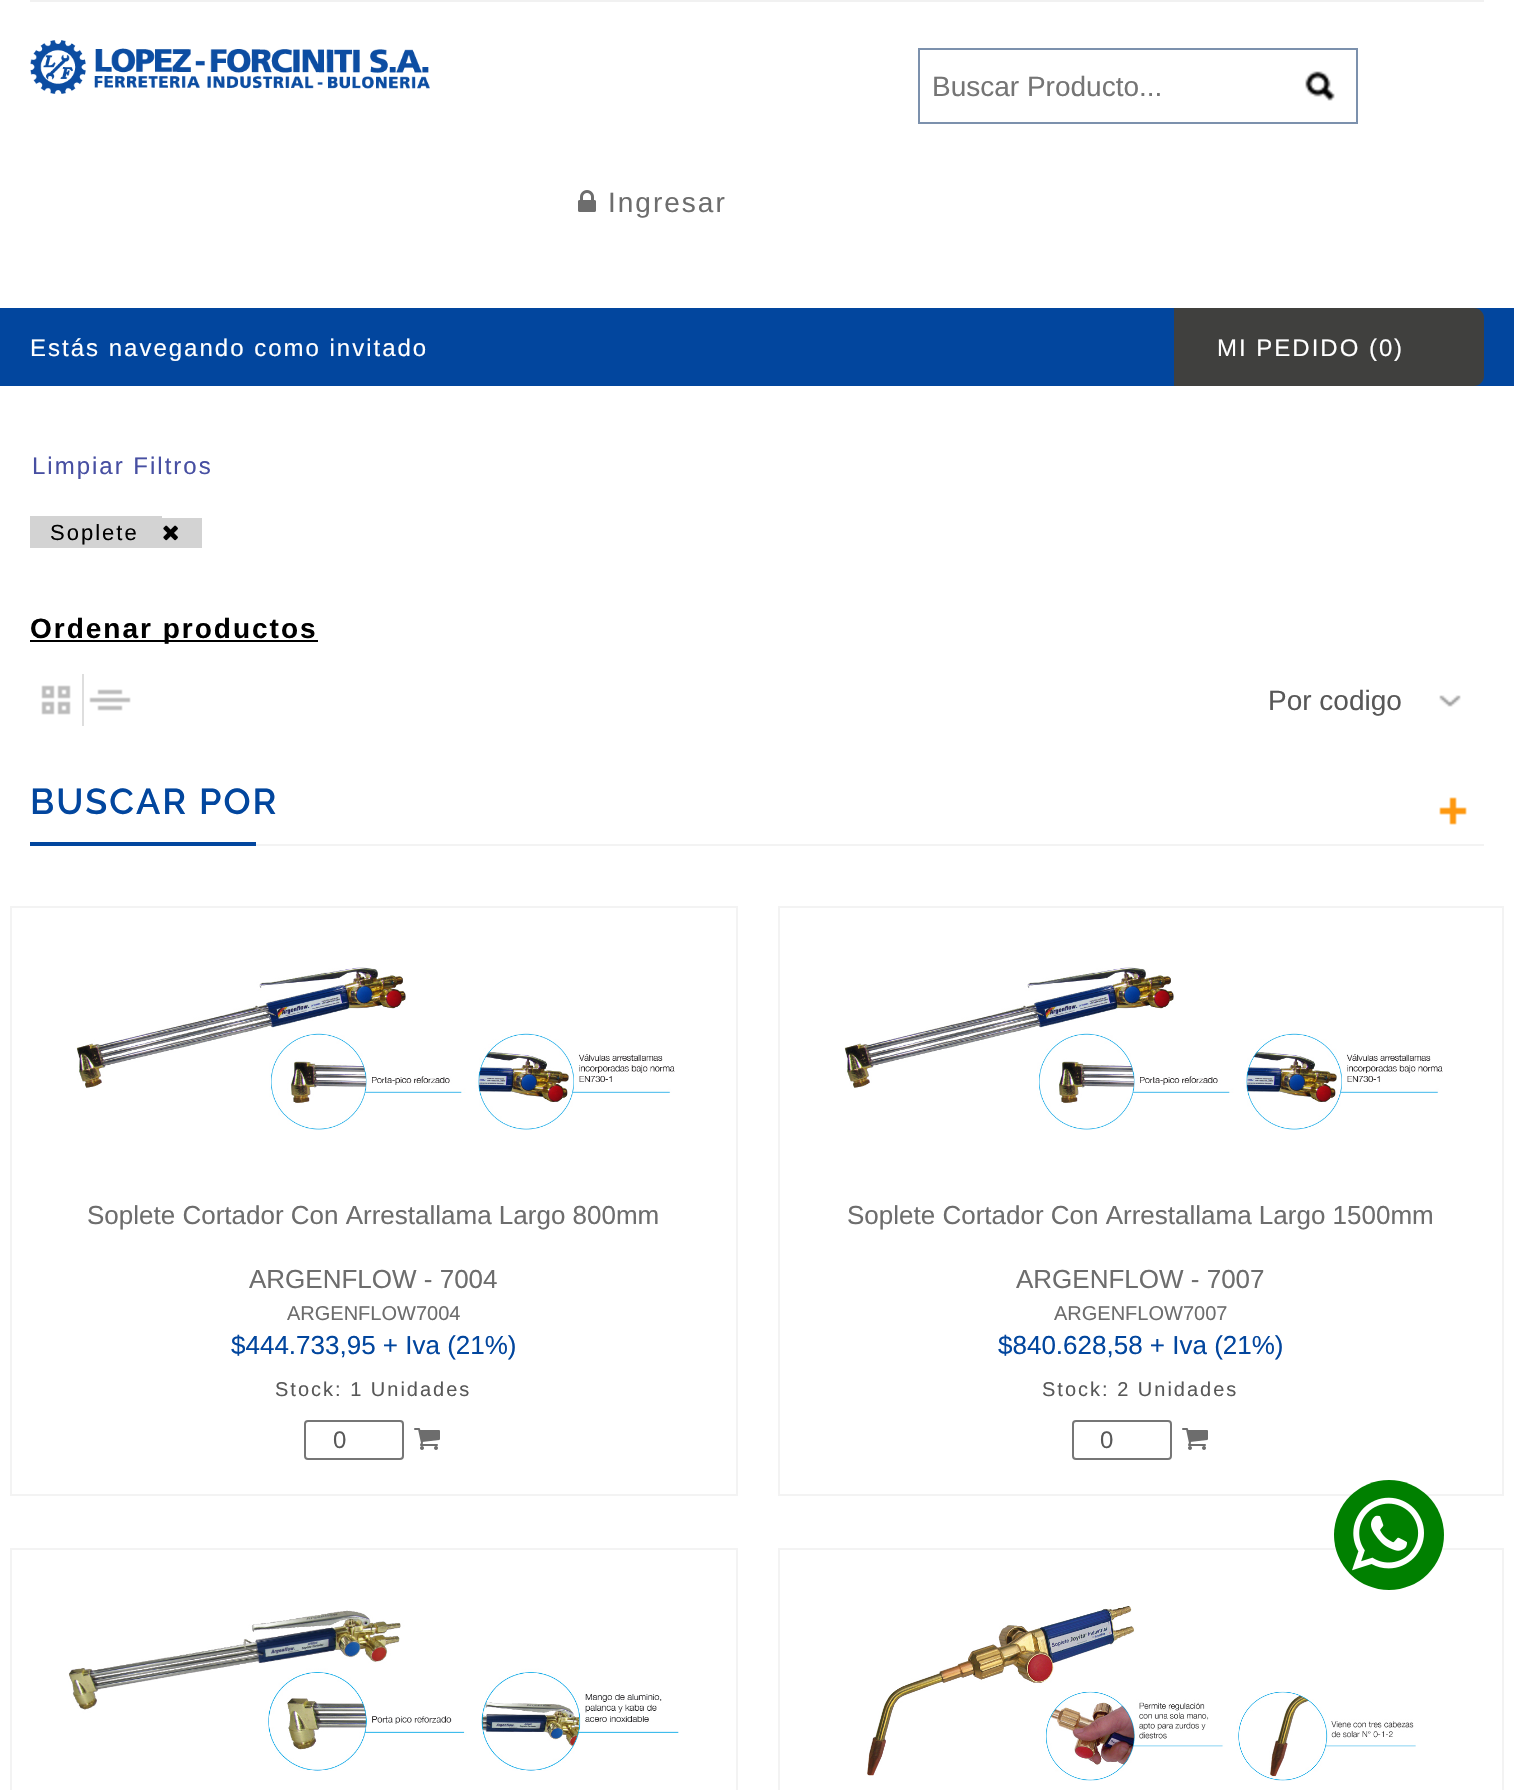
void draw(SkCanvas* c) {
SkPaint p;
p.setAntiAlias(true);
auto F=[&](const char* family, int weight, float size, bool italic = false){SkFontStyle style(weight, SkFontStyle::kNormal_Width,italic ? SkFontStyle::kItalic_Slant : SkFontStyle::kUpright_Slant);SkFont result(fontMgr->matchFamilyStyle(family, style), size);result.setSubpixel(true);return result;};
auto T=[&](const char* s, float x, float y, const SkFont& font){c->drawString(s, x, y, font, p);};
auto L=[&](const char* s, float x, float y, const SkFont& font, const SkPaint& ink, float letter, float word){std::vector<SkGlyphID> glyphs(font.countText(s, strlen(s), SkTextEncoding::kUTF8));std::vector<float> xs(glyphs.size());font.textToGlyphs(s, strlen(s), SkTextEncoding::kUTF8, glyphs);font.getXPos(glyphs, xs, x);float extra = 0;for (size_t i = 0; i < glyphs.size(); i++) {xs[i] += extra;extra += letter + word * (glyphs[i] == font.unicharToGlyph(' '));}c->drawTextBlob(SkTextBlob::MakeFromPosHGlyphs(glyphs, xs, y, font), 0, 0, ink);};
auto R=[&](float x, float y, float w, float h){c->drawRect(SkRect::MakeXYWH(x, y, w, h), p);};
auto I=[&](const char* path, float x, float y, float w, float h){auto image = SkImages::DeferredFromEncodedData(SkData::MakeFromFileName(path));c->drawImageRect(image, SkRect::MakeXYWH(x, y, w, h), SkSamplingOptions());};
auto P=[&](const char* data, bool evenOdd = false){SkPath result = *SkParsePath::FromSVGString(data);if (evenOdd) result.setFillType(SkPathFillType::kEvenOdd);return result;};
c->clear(0xffffffff);
p.setColor(0xfff1f1f1);
R(30,0,1454,2);
I("1.png",30,40,400,54);
p.setStroke(true);
p.setStrokeWidth(2);
p.setColor(0xff7c91ad);
c->drawRect(SkRect::MakeXYWH(919,49,438,74),p);
auto f1 = F("Liberation Sans",400,28);
p.setStroke(false);
p.setColor(0xff757575);
T("Buscar Producto...",932,96,f1);
I("2.png",1305,71,30,30);
I("3.png",578,190,18,22);
p.setColor(0xff6d6d6d);
L("Ingresar",608,212,f1,p,2,0);
p.setColor(0xff02469e);
R(0,308,1514,78);
auto f2 = F("Liberation Sans",400,24);
p.setColor(0xffffffff);
L("Estás navegando como invitado",30,356,f2,p,2,0);
p.setColor(0xff40403e);
c->drawPath(P("M1174 308h300c5.5 0 10 4.5 10 10v58c0 5.5-4.5 10-10 10h-300z"),p);
p.setColor(0xffffffff);
L("MI PEDIDO (0",1217,356,f2,p,2,0);
L(")",1394,356,f2,p,2,0);
p.setColor(0xff474fa2);
L("Limpiar Filtros",32,474,f2,p,2,0);
p.setColor(0xffd3d3d3);
R(30,516,132,32);
R(162,518,40,30);
auto f3 = F("Liberation Sans",400,22);
p.setColor(0xff000000);
L("Soplete",50,540,f3,p,2,0);
I("4.png",163,525,15,16);
R(30,640,288,2);
auto f4 = F("Liberation Sans",700,28);
L("Ordenar productos",30,638,f4,p,2,0);
p.setColor(0xffdedede);
R(82,674,2,52);
I("5.png",41,685,30,30);
I("6.png",89,689,42,22);
I("7.png",1439,695,22,12);
p.setColor(0xff585858);
T("Por codigo",1268,710,f1);
p.setColor(0xfff3f3f3);
R(256,844,1228,2);
auto f5 = F("Raleway",600,36);
p.setColor(0xff02469e);
L("BUSCAR POR",30,814,f5,p,2,0);
R(30,842,226,4);
I("8.png",1439,797,28,28);
p.setStroke(true);
p.setColor(0xfff3f3f3);
c->drawRect(SkRect::MakeXYWH(11,907,726,588),p);
I("9.png",76,967,599,163);
auto f6 = F("Liberation Sans",400,26);
p.setStroke(false);
p.setColor(0xff6d6d6d);
T("Soplete Cortador Con Arrestallama Largo 800mm",87,1224,f6);
T("ARGENFLOW - 7004",249,1288,f6);
auto f7 = F("Liberation Sans",400,20);
T("ARGENFLOW7004",287,1320,f7);
p.setColor(0xff02469e);
T("$444.733,95 + Iva (21%)",231,1354,f6);
p.setColor(0xff585858);
L("Stock: 1 Unidades",275,1396,f7,p,2,0);
p.setStroke(true);
p.setColor(0xff767676);
c->drawRoundRect(SkRect::MakeXYWH(305,1421,98,38),3,3,p);
p.setStroke(false);
p.setColor(0xff585858);
T("0",333,1448,f2);
I("10.png",414,1428,26,22);
p.setStroke(true);
p.setColor(0xfff3f3f3);
c->drawRect(SkRect::MakeXYWH(779,907,724,588),p);
I("11.png",844,967,599,163);
p.setStroke(false);
p.setColor(0xff6d6d6d);
T("Soplete Cortador Con Arrestallama Largo 1500mm",847,1224,f6);
T("ARGENFLOW - 7007",1016,1288,f6);
T("ARGENFLOW7007",1054,1320,f7);
p.setColor(0xff02469e);
T("$840.628,58 + Iva (21%)",998,1354,f6);
p.setColor(0xff585858);
L("Stock: 2 Unidades",1042,1396,f7,p,2,0);
p.setStroke(true);
p.setColor(0xff767676);
c->drawRoundRect(SkRect::MakeXYWH(1073,1421,98,38),3,3,p);
p.setStroke(false);
p.setColor(0xff585858);
T("0",1100,1448,f2);
I("10.png",1182,1428,26,22);
p.setStroke(true);
p.setColor(0xfff3f3f3);
c->drawRect(SkRect::MakeXYWH(11,1549,726,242),p);
I("12.png",68,1610,611,161);
c->drawRect(SkRect::MakeXYWH(779,1549,724,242),p);
I("13.png",867,1606,549,175);
p.setStroke(false);
p.setColor(0xff008000);
c->drawCircle(1389,1535,55,p);
I("14.png",1352,1497,72,74);
}
